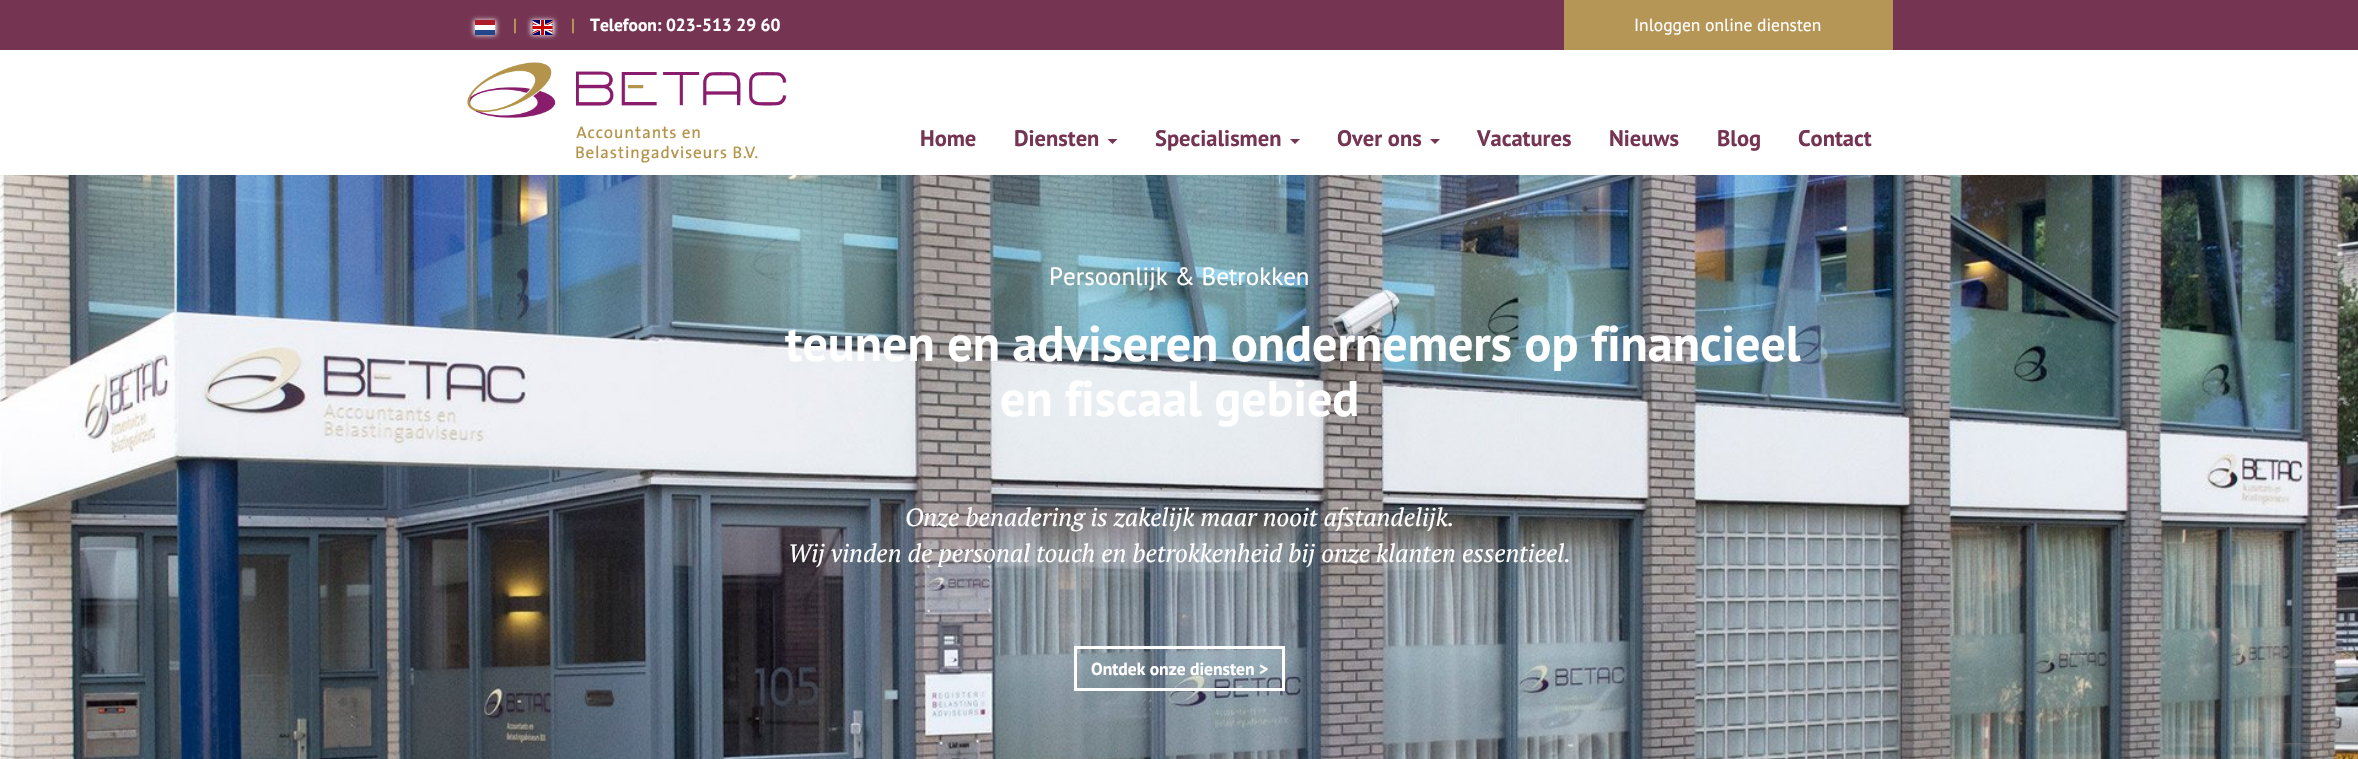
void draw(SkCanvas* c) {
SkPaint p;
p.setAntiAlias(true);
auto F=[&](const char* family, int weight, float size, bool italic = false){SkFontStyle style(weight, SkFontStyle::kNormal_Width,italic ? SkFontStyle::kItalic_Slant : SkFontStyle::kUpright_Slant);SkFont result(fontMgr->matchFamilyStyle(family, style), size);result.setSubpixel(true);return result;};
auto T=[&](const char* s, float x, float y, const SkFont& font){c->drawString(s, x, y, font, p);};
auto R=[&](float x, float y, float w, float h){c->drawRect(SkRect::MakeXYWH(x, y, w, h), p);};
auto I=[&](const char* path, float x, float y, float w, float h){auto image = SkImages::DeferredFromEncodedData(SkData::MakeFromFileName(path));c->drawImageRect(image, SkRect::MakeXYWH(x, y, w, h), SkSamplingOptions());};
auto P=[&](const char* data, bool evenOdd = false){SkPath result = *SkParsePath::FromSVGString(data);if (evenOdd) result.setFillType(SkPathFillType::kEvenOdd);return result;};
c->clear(0xffffffff);
p.setColor(0xff743452);
R(0,0,2358,50);
p.setColor(0xffffffff);
p.setMaskFilter(SkMaskFilter::MakeBlur(kNormal_SkBlurStyle, 2.5));
c->drawRect(SkRect::MakeXYWH(474,20,22,15),p);
p.setMaskFilter(nullptr);
p.setColor(0xffae1c28);
R(475,20,20,5);
p.setColor(0xffffffff);
R(475,25,20,5);
p.setColor(0xff21468b);
R(475,30,20,5);
auto f1 = F("PT Sans",700,17.5);
p.setColor(0xffb69656);
T("|",513,31,f1);
p.setColor(0xffffffff);
p.setMaskFilter(SkMaskFilter::MakeBlur(kNormal_SkBlurStyle, 2.5));
c->drawRect(SkRect::MakeXYWH(531,20,23,15),p);
p.setMaskFilter(nullptr);
I("1.png",532,20,21,15);
p.setColor(0xffb69656);
T("|",571,31,f1);
p.setColor(0xffffffff);
T("Telefoon: 023-513 29 60",590,31,f1);
p.setColor(0xffb69656);
R(1564,0,329,50);
auto f2 = F("PT Sans",400,17.5);
p.setColor(0xffffffff);
T("Inloggen online diensten",1634,31,f2);
I("2.png",467,62,320,101);
auto f3 = F("PT Sans",700,22.5);
p.setColor(0xff743452);
T("Home",920,146,f3);
T("Diensten",1014,146,f3);
c->drawPath(P("M1107.5 139h10l-5 5z"),p);
T("Specialismen",1155,146,f3);
c->drawPath(P("M1290 139h10l-5 5z"),p);
T("Over ons",1337,146,f3);
c->drawPath(P("M1430 139h10l-5 5z"),p);
T("Vacatures",1477,146,f3);
T("Nieuws",1609,146,f3);
T("Blog",1717,146,f3);
T("Contact",1798,146,f3);
I("3.png",0,175,2358,584);
auto f4 = F("PT Sans",400,25);
p.setColor(0xffffffff);
T("Persoonlijk & Betrokken",1049,285,f4);
auto f5 = F("PT Sans",700,50);
T("teunen en adviseren ondernemers op financieel",785,361,f5);
T("en fiscaal gebied",1000,416,f5);
auto f6 = F("PT Serif",400,25,true);
T("Onze benadering is zakelijk maar nooit afstandelijk.",905,526,f6);
T("Wij vinden de personal touch en betrokkenheid bij onze klanten essentieel.",788,562,f6);
p.setStroke(true);
p.setStrokeWidth(3);
c->drawRect(SkRect::MakeXYWH(1075.5,647.5,208,42),p);
p.setStroke(false);
T("Ontdek onze diensten >",1091,675,f1);
c->save();
c->clipPath(P("M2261 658h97v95h-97zm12.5 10h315c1.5 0 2.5 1 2.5 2.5v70c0 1.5-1 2.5-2.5 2.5h-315c-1.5 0-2.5-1-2.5-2.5v-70c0-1.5 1-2.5 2.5-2.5z",true),true);
p.setColor(0xff808080);
p.setMaskFilter(SkMaskFilter::MakeBlur(kNormal_SkBlurStyle, 3));
c->drawRoundRect(SkRect::MakeXYWH(2271,668,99,75),2.5,2.5,p);
p.setMaskFilter(nullptr);
c->restore();
}
